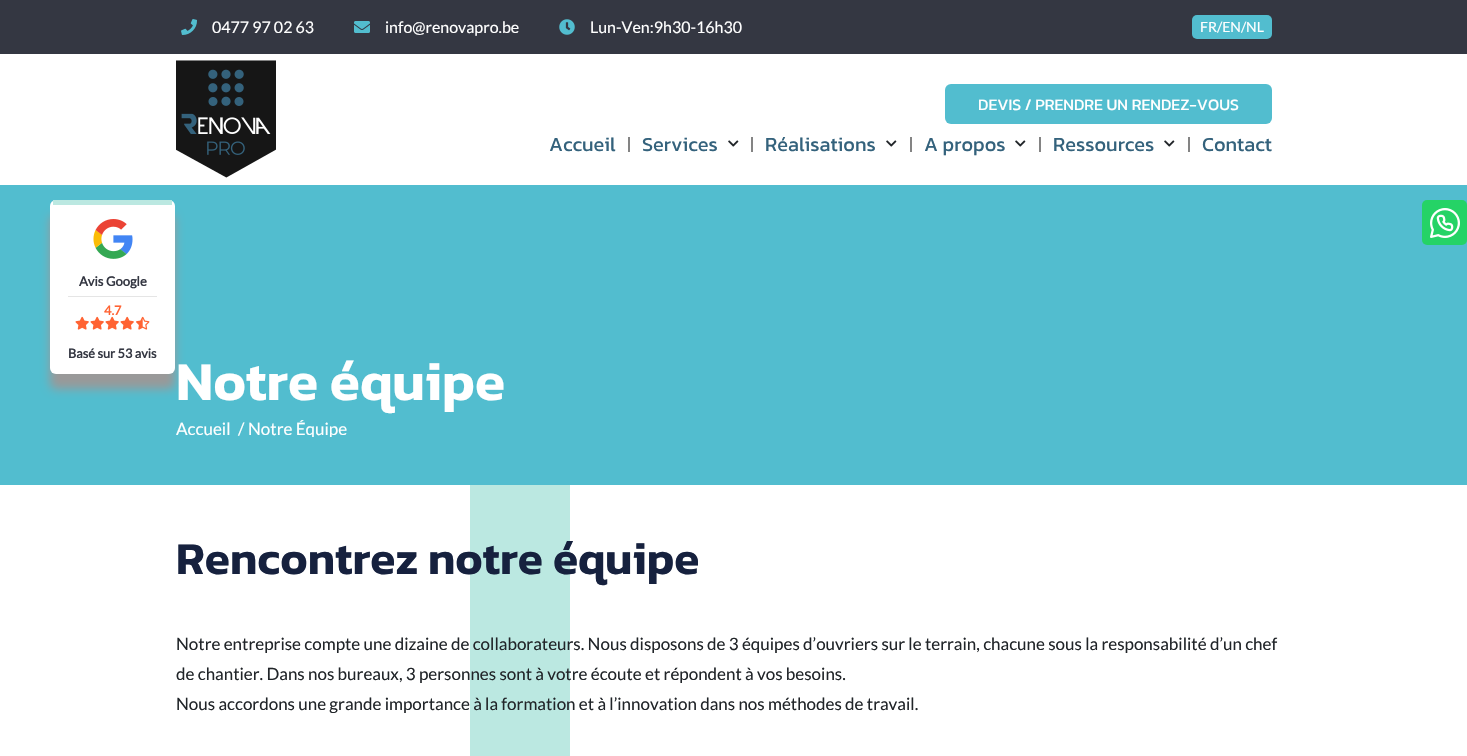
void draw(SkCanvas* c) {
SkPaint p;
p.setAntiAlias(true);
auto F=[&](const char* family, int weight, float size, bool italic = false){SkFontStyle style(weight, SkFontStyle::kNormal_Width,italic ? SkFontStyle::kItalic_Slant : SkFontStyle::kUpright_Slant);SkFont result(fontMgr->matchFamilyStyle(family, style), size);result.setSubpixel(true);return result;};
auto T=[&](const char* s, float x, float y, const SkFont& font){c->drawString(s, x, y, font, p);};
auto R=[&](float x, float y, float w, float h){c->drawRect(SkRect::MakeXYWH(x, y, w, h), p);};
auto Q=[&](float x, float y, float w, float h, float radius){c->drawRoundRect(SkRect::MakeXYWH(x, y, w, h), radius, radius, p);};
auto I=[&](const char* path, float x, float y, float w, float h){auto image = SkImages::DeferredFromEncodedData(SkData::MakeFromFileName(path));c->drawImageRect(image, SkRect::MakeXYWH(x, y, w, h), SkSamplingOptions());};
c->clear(0xffffffff);
p.setColor(0xff343742);
R(0,0,1467,54);
I("1.png",181,19,16,16);
auto f1 = F("Lato",400,16);
p.setColor(0xffffffff);
T("0477 97 02 63",212,33,f1);
I("2.png",354,21,16,12);
T("info@renovapro.be",385,33,f1);
I("3.png",559,19,16,16);
T("Lun-Ven:9h30-16h30",590,33,f1);
p.setColor(0xff52bdcf);
Q(1192,15,80,24,5);
auto f2 = F("Lato",400,14);
p.setColor(0xffffffff);
T("FR/EN/NL",1200,32,f2);
I("4.png",176,60,100,118);
p.setColor(0xff52bdcf);
Q(945,84,327,40,6);
auto f3 = F("Kanit",400,16);
p.setColor(0xffffffff);
T("DEVIS / PRENDRE UN RENDEZ-VOUS",978,110,f3);
auto f4 = F("Kanit",400,20);
p.setColor(0xff34627c);
T("Accueil",549,151,f4);
p.setColor(0xff848484);
R(628,137,2,15);
p.setColor(0xff34627c);
T("Services",642,151,f4);
I("5.png",728,140,11,7);
p.setColor(0xff848484);
R(751,137,2,15);
p.setColor(0xff34627c);
T("Réalisations",765,151,f4);
I("5.png",886,140,11,7);
p.setColor(0xff848484);
R(910,137,2,15);
p.setColor(0xff34627c);
T("A propos",924,151,f4);
I("5.png",1015,140,11,7);
p.setColor(0xff848484);
R(1039,137,2,15);
p.setColor(0xff34627c);
T("Ressources",1053,151,f4);
I("5.png",1164,140,11,7);
p.setColor(0xff848484);
R(1188,137,2,15);
p.setColor(0xff34627c);
T("Contact",1202,151,f4);
p.setStroke(true);
p.setStrokeWidth(100);
p.setColor(0xffbbe8e1);
c->drawRect(SkRect::MakeXYWH(-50,282,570,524),p);
p.setStroke(false);
p.setColor(0xff52bdcf);
R(0,185,1467,300);
p.setColor(0xff25d366);
Q(1422,200,45,45,5);
I("6.png",1430,208,30,30);
p.setColor(0xff999999);
p.setMaskFilter(SkMaskFilter::MakeBlur(kNormal_SkBlurStyle, 5));
c->drawRoundRect(SkRect::MakeXYWH(50,215,125,174),6,6,p);
p.setMaskFilter(nullptr);
p.setColor(0xffffffff);
Q(50,200,125,174,6);
p.setColor(0xffbbe8e1);
R(53,200,119,5);
I("7.png",93,219,40,40);
p.setColor(0xffe5e5e5);
R(68,296,89,1);
auto f5 = F("Lato",700,13);
p.setColor(0xff343742);
T("Avis Google",79,286,f5);
auto f6 = F("Lato",700,12.75);
p.setColor(0xffff6333);
T("4.7",104,315,f6);
I("8.png",75,316,14,14);
I("8.png",90,316,14,14);
I("8.png",105,316,14,14);
I("8.png",120,316,14,14);
I("9.png",136,316,14,14);
p.setColor(0xff343742);
T("Basé sur 53 avis",68,358,f6);
auto f7 = F("Kanit",600,55);
p.setColor(0xffffffff);
T("Notre équipe",176,400,f7);
auto f8 = F("Lato",400,17);
T("Accueil",176,435,f8);
T("/",238,435,f8);
c->save();
c->clipRect(SkRect::MakeXYWH(248,420,108,17));
T("Notre Équipe",248,435,f8);
c->restore();
auto f9 = F("Kanit",600,46);
p.setColor(0xff16213e);
T("Rencontrez notre équipe",176,574,f9);
p.setColor(0xff212529);
T("Notre entreprise compte une dizaine de collaborateurs. Nous disposons de 3 équipes d’ouvriers sur le terrain, chacune sous la responsabilité d’un chef",176,650,f8);
T("de chantier. Dans nos bureaux, 3 personnes sont à votre écoute et répondent à vos besoins.",176,680,f8);
T("Nous accordons une grande importance à la formation et à l’innovation dans nos méthodes de travail.",176,710,f8);
}
